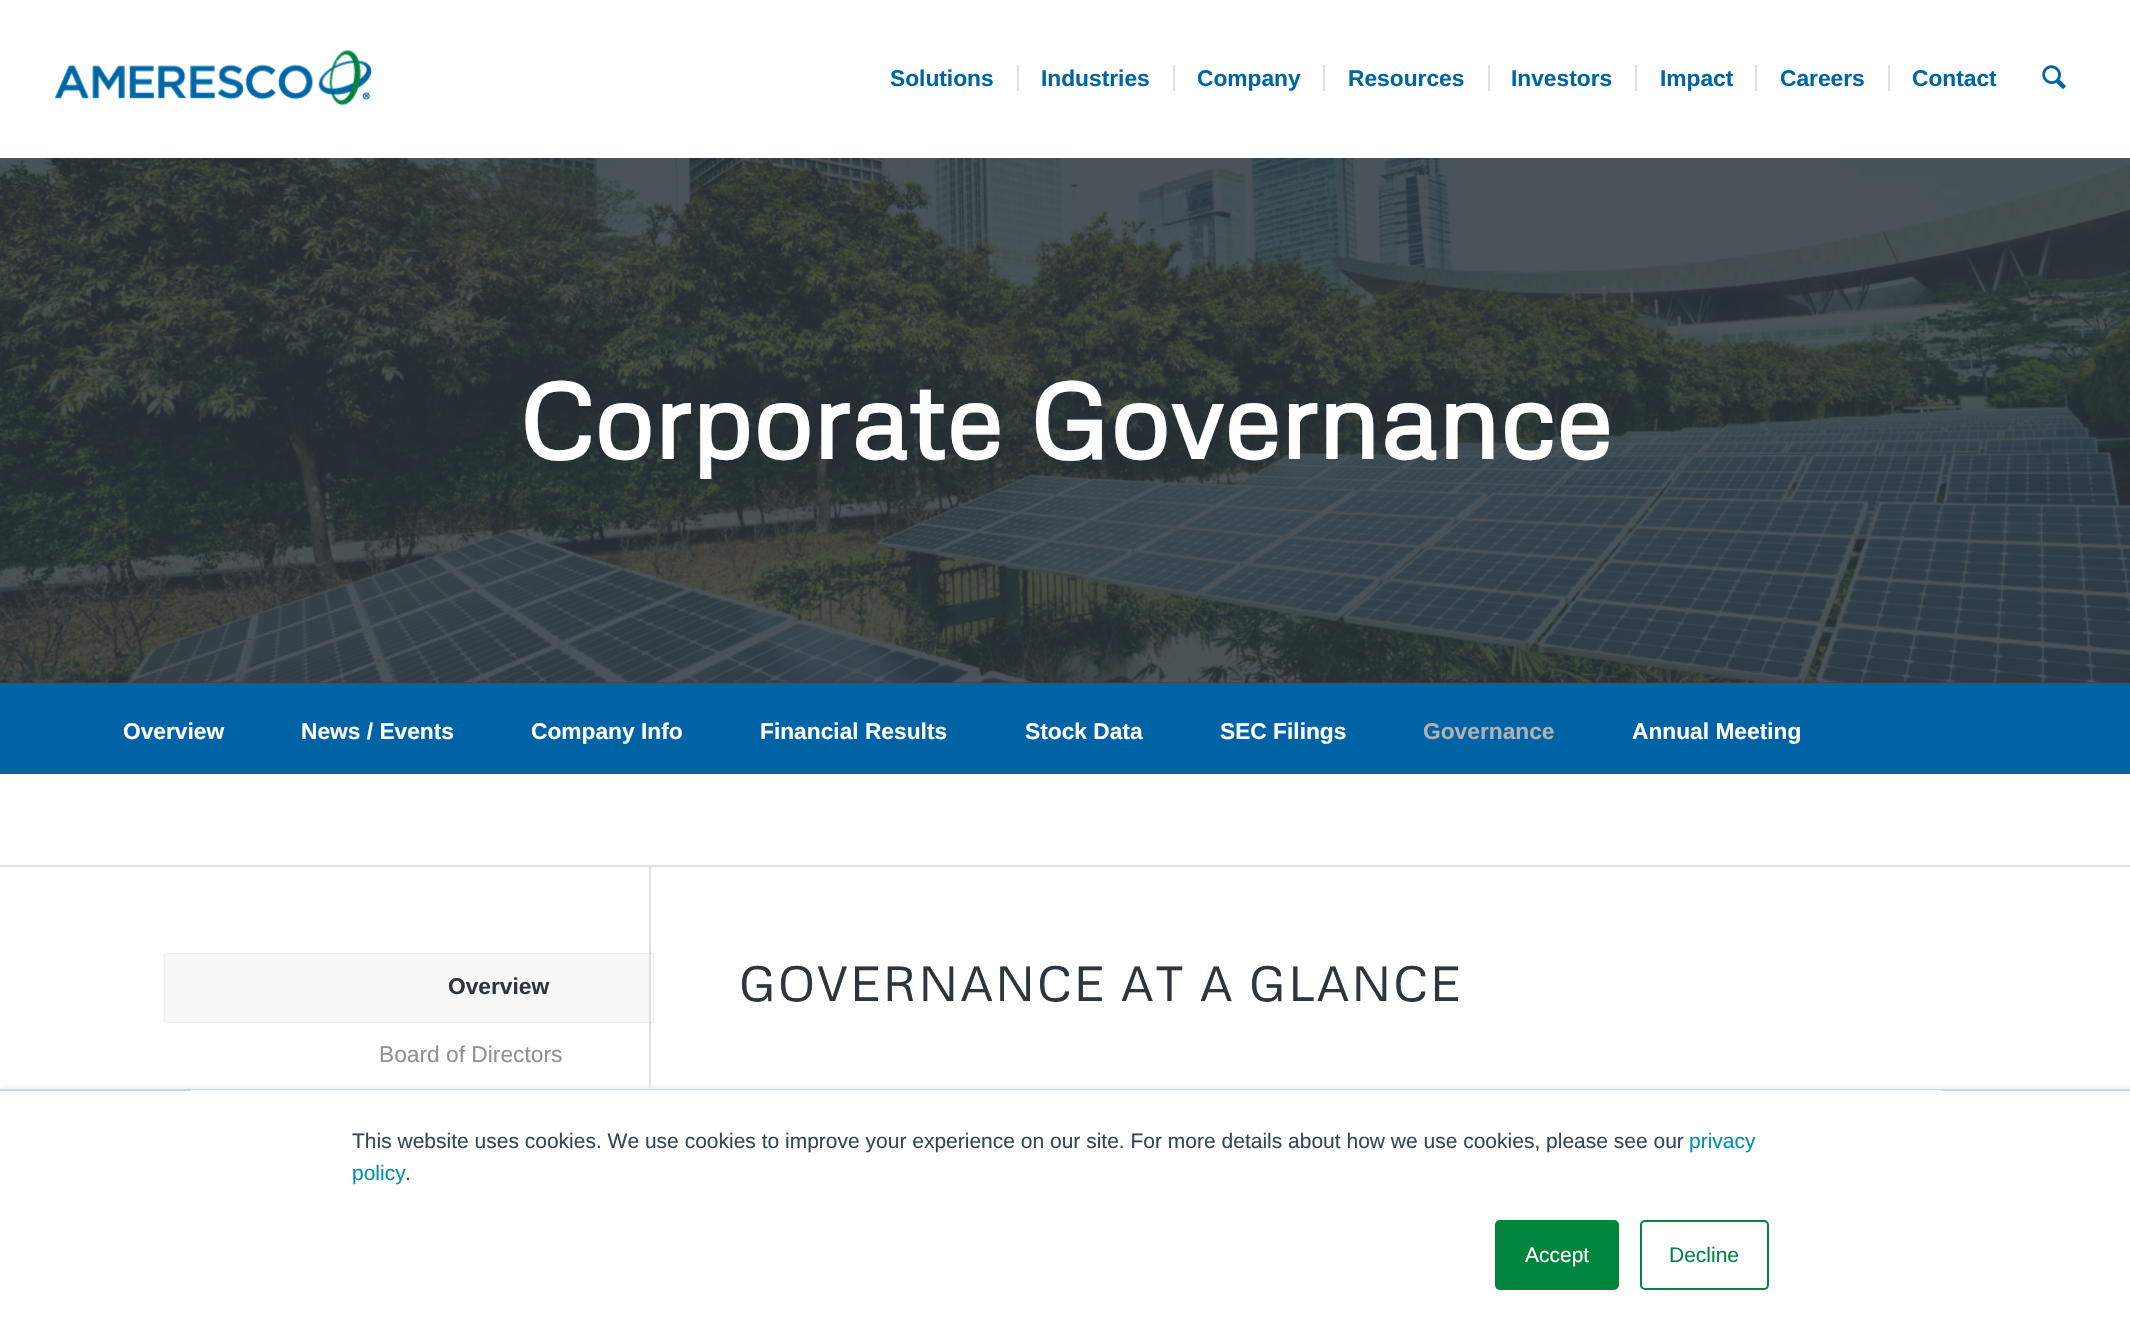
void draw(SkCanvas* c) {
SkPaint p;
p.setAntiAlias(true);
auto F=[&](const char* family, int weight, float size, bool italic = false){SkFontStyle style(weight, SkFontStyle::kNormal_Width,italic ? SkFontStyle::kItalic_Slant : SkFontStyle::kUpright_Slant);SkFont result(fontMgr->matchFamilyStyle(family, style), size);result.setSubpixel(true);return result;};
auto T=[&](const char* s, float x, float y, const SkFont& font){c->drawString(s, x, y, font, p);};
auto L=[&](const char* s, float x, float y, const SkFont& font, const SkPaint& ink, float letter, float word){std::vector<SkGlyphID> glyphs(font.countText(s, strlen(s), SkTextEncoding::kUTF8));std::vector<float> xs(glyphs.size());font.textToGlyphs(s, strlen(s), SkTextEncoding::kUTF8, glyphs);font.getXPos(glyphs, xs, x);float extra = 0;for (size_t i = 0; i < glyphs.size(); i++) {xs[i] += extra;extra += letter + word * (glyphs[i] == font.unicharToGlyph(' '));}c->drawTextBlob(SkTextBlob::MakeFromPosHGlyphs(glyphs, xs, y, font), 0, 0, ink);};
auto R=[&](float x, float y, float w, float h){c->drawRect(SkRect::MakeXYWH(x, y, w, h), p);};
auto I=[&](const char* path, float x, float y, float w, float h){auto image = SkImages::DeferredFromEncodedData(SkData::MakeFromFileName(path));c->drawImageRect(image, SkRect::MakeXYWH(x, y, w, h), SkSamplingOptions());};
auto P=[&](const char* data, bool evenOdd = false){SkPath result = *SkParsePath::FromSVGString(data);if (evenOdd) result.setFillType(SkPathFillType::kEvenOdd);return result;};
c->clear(0xff333c44);
p.setColor(0xffffffff);
R(0,0,2130,158);
I("1.png",54,50,318,56);
auto f1 = F("Liberation Sans",700,22.75);
p.setColor(0xff0065a4);
T("Solutions",890,86,f1);
T("Industries",1041,86,f1);
p.setColor(0xffe1e1e1);
R(1017,65,2,26);
p.setColor(0xff0065a4);
T("Company",1197,86,f1);
p.setColor(0xffe1e1e1);
R(1173,65,2,26);
p.setColor(0xff0065a4);
T("Resources",1348,86,f1);
p.setColor(0xffe1e1e1);
R(1323,65,2,26);
p.setColor(0xff0065a4);
T("Investors",1511,86,f1);
p.setColor(0xffe1e1e1);
R(1488,65,2,26);
p.setColor(0xff0065a4);
T("Impact",1660,86,f1);
p.setColor(0xffe1e1e1);
R(1635,65,2,26);
p.setColor(0xff0065a4);
T("Careers",1780,86,f1);
p.setColor(0xffe1e1e1);
R(1755,65,2,26);
p.setColor(0xff0065a4);
T("Contact",1912,86,f1);
p.setColor(0xffe1e1e1);
R(1888,65,2,26);
I("2.png",2042,65,24,24);
I("3.png",0,158,2130,525);
auto f2 = F("Metrophobic",700,105);
p.setColor(0xffffffff);
T("Corporate Governance",519,459,f2);
p.setColor(0xff0063a6);
R(0,683,2130,91);
p.setColor(0xffffffff);
T("Overview",123,739,f1);
T("News / Events",301,739,f1);
T("Company Info",531,739,f1);
T("Financial Results",760,739,f1);
T("Stock Data",1025,739,f1);
T("SEC Filings",1220,739,f1);
p.setColor(0xffb1b1b1);
T("Governance",1423,739,f1);
p.setColor(0xffffffff);
T("Annual Meeting",1632,739,f1);
R(0,774,2130,315);
p.setColor(0xffe1e1e1);
R(0,865,2130,2);
R(649,866,2,223);
c->save();
c->clipPath(P("M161 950h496v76h-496zm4 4h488v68h-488z",true),true);
p.setColor(0x33000000);
p.setMaskFilter(SkMaskFilter::MakeBlur(kNormal_SkBlurStyle, 1));
c->drawRect(SkRect::MakeXYWH(165,954,488,68),p);
p.setMaskFilter(nullptr);
c->restore();
p.setColor(0xfff8f8f8);
R(165,954,484,68);
p.setColor(0xff2d363d);
T("Overview",448,994,f1);
auto f3 = F("Liberation Sans",400,22.75);
p.setColor(0xff919191);
T("Board of Directors",379,1062,f3);
auto f4 = F("Metrophobic",400,49);
p.setColor(0xff2d363d);
L("GOVERNANCE AT A GLANCE",739,1001,f4,p,1.75,0);
p.setColor(0xffeaf0f6);
p.setMaskFilter(SkMaskFilter::MakeBlur(kNormal_SkBlurStyle, 2.5));
c->drawRect(SkRect::MakeXYWH(0,1087,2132,247),p);
p.setMaskFilter(nullptr);
p.setColor(0xffffffff);
R(0,1091,2130,244);
p.setColor(0xffcbd6e2);
R(0,1089,2130,2);
p.setColor(0xffffffff);
R(191,1090,1750,1);
auto f5 = F("Liberation Sans",400,21);
p.setColor(0xff33475b);
T("This website uses cookies. We use cookies to improve your experience on our site. For more details about how we use cookies, please see our",352,1148,f5);
p.setColor(0xff0091ae);
T("privacy",1689,1148,f5);
T("policy",352,1180,f5);
p.setColor(0xff33475b);
T(".",405,1180,f5);
p.setColor(0xff00853f);
c->drawRoundRect(SkRect::MakeXYWH(1496,1221,122,68),4,4,p);
p.setStroke(true);
p.setStrokeWidth(2);
c->drawRoundRect(SkRect::MakeXYWH(1496,1221,122,68),4,4,p);
p.setStroke(false);
p.setColor(0xffffffff);
T("Accept",1525,1262,f5);
p.setStroke(true);
p.setColor(0xff00853f);
c->drawRoundRect(SkRect::MakeXYWH(1641,1221,127,68),4,4,p);
p.setStroke(false);
T("Decline",1669,1262,f5);
}
